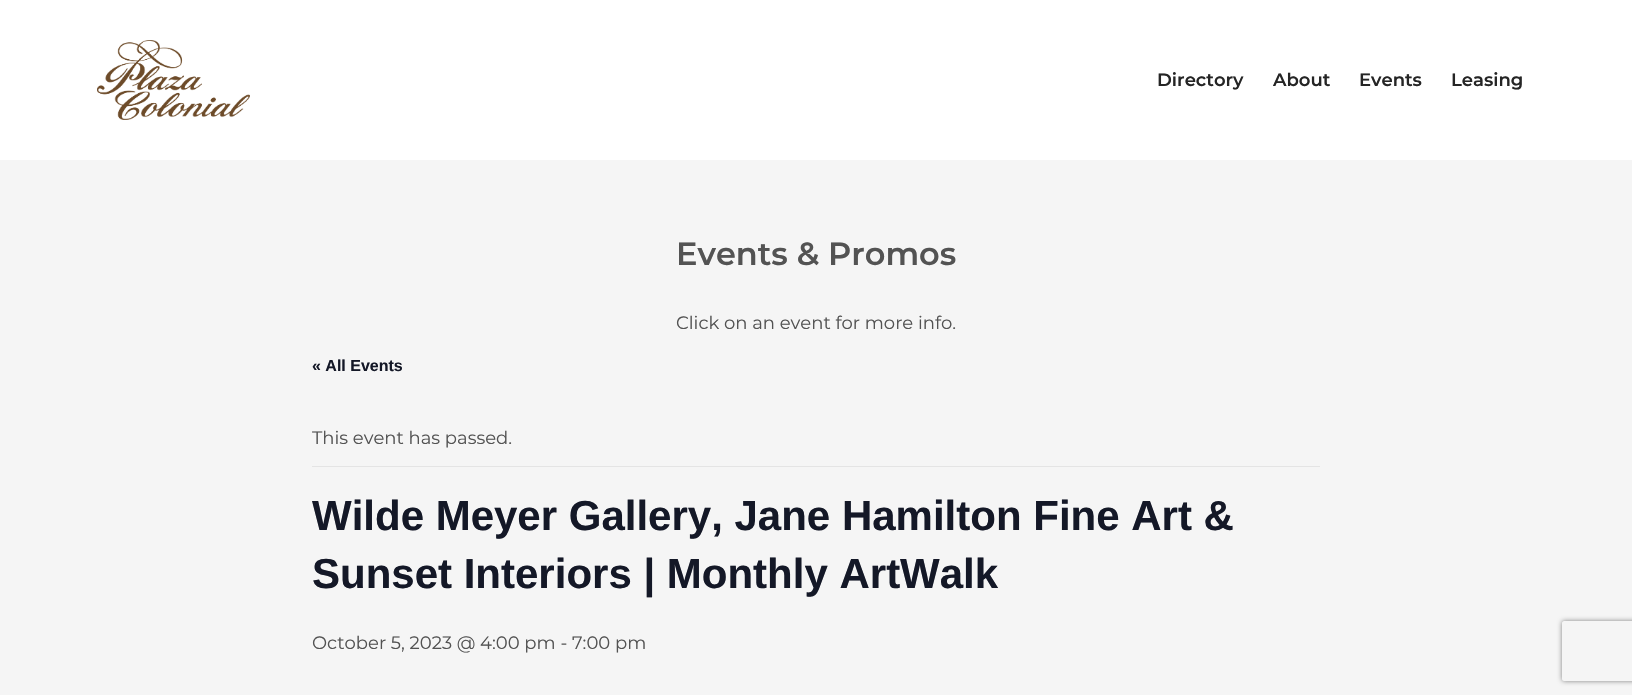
void draw(SkCanvas* c) {
SkPaint p;
p.setAntiAlias(true);
auto F=[&](const char* family, int weight, float size, bool italic = false){SkFontStyle style(weight, SkFontStyle::kNormal_Width,italic ? SkFontStyle::kItalic_Slant : SkFontStyle::kUpright_Slant);SkFont result(fontMgr->matchFamilyStyle(family, style), size);result.setSubpixel(true);return result;};
auto T=[&](const char* s, float x, float y, const SkFont& font){c->drawString(s, x, y, font, p);};
auto R=[&](float x, float y, float w, float h){c->drawRect(SkRect::MakeXYWH(x, y, w, h), p);};
auto I=[&](const char* path, float x, float y, float w, float h){auto image = SkImages::DeferredFromEncodedData(SkData::MakeFromFileName(path));c->drawImageRect(image, SkRect::MakeXYWH(x, y, w, h), SkSamplingOptions());};
auto P=[&](const char* data, bool evenOdd = false){SkPath result = *SkParsePath::FromSVGString(data);if (evenOdd) result.setFillType(SkPathFillType::kEvenOdd);return result;};
c->clear(0xfff5f5f5);
p.setColor(0xffffffff);
R(0,0,1632,160);
I("1.png",97,40,153,80);
auto f1 = F("Montserrat",600,18);
p.setColor(0xff252525);
T("Directory",1157,86,f1);
T("About",1273,86,f1);
T("Events",1359,86,f1);
T("Leasing",1451,86,f1);
auto f2 = F("Montserrat",600,32);
p.setColor(0xff535353);
T("Events & Promos",676,265,f2);
auto f3 = F("Montserrat",400,18);
T("Click on an event for more info.",676,329,f3);
auto f4 = F("Liberation Sans",700,16);
p.setColor(0xff141827);
T("« All Events",312,371,f4);
p.setColor(0xffe4e4e4);
R(312,466,1008,1);
p.setColor(0xff535353);
T("This event has passed.",312,444,f3);
auto f5 = F("Liberation Sans",700,42);
p.setColor(0xff141827);
T("Wilde Meyer Gallery, Jane Hamilton Fine Art &",312,530,f5);
T("Sunset Interiors | Monthly ArtWalk",312,588,f5);
p.setColor(0xff535353);
T("October 5, 2023 @ 4:00 pm - 7:00 pm",312,649,f3);
c->save();
c->clipPath(P("M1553 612h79v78h-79zm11 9h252c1 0 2 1 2 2v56c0 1-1 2-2 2h-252c-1 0-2-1-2-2v-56c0-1 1-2 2-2z",true),true);
p.setColor(0xff808080);
p.setMaskFilter(SkMaskFilter::MakeBlur(kNormal_SkBlurStyle, 2.5));
c->drawRoundRect(SkRect::MakeXYWH(1562,621,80,60),2,2,p);
p.setMaskFilter(nullptr);
c->restore();
}
